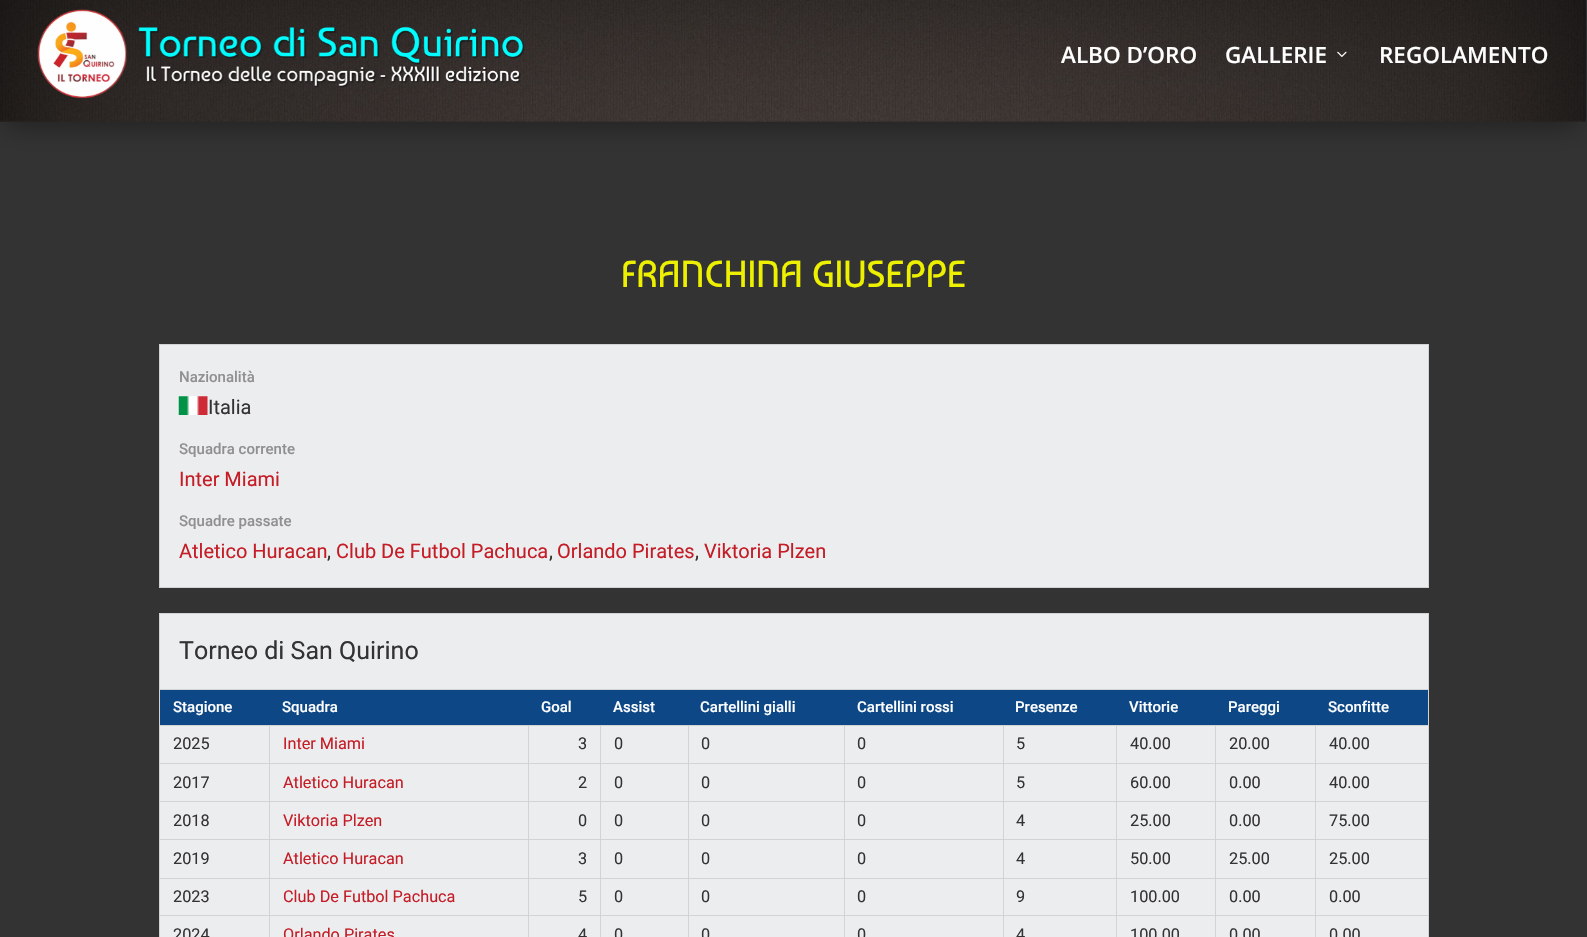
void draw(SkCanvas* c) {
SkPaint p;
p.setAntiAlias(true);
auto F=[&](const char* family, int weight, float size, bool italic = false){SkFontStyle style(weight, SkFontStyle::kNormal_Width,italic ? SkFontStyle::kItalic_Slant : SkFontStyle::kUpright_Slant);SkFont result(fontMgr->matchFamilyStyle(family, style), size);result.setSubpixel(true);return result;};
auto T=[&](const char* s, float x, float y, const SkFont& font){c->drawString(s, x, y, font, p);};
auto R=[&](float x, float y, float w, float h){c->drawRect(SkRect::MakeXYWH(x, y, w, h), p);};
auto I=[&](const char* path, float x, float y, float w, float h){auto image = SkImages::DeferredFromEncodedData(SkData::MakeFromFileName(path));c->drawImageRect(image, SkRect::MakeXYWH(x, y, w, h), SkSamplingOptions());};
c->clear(0xff333333);
p.setColor(0x4d000000);
p.setMaskFilter(SkMaskFilter::MakeBlur(kNormal_SkBlurStyle, 11));
c->drawRect(SkRect::MakeXYWH(6,23,1573,106),p);
p.setMaskFilter(nullptr);
I("1.png",0,0,1586,122);
I("2.png",37,9,488,90);
auto f1 = F("Open Sans",600,22.5);
p.setColor(0xffffffff);
T("ALBO D’ORO",1061,63,f1);
T("GALLERIE",1225,63,f1);
I("3.png",1337,51,10,6);
T("REGOLAMENTO",1379,63,f1);
auto f2 = F("Baumans",400,37.5);
p.setColor(0xffedf000);
T("FRANCHINA GIUSEPPE",621,287,f2);
p.setColor(0xffecedee);
c->drawRect(SkRect::MakeXYWH(159.5,344.5,1269,243),p);
p.setStroke(true);
p.setStrokeWidth(1);
p.setColor(0xffd2d3d4);
c->drawRect(SkRect::MakeXYWH(159.5,344.5,1269,243),p);
auto f3 = F("Roboto",500,15);
p.setStroke(false);
p.setColor(0xff909091);
T("Nazionalità",179,382,f3);
I("4.png",178,396,30,19);
auto f4 = F("Roboto",400,20);
p.setColor(0xff333333);
T("Italia",208,414,f4);
p.setColor(0xff909091);
T("Squadra corrente",179,454,f3);
p.setColor(0xffc51d27);
T("Inter Miami",179,486,f4);
p.setColor(0xff909091);
T("Squadre passate",179,526,f3);
p.setColor(0xffc51d27);
T("Atletico Huracan",179,558,f4);
p.setColor(0xff333333);
T(",",327,558,f4);
p.setColor(0xffc51d27);
T("Club De Futbol Pachuca",336,558,f4);
p.setColor(0xff333333);
T(",",549,558,f4);
p.setColor(0xffc51d27);
T("Orlando Pirates",557,558,f4);
p.setColor(0xff333333);
T(",",695,558,f4);
p.setColor(0xffc51d27);
T("Viktoria Plzen",704,558,f4);
p.setColor(0xffecedee);
R(160,614,1268,75);
p.setColor(0xffd2d3d4);
R(159,613,1270,1);
R(1428,613,1,76);
R(159,613,1,76);
auto f5 = F("Roboto",400,25);
p.setColor(0xff333333);
T("Torneo di San Quirino",179,659,f5);
p.setColor(0xffecedee);
R(160,726,1268,211);
p.setColor(0xffd2d3d4);
R(159,689,1270,1);
R(1428,689,1,248);
R(159,689,1,248);
p.setColor(0xff0d4785);
R(160,690,1268,35);
p.setColor(0xffffffff);
T("Stagione",173,712,f3);
T("Squadra",282,712,f3);
T("Goal",541,712,f3);
T("Assist",613,712,f3);
T("Cartellini gialli",700,712,f3);
T("Cartellini rossi",857,712,f3);
T("Presenze",1015,712,f3);
T("Vittorie",1129,712,f3);
T("Pareggi",1228,712,f3);
T("Sconfitte",1328,712,f3);
p.setColor(0xffd2d3d4);
R(1315,725,114,1);
R(1315,763,114,1);
R(1315,801,114,1);
R(1315,839,114,1);
R(1315,878,114,1);
R(1315,915,114,1);
R(1315,915,1,22);
R(1215,915,101,1);
R(1315,878,1,38);
R(1215,878,101,1);
R(1315,839,1,40);
R(1215,839,101,1);
R(1315,801,1,39);
R(1215,801,101,1);
R(1315,763,1,40);
R(1215,763,101,1);
R(1315,725,1,39);
R(1215,725,101,1);
R(1215,915,1,22);
R(1116,915,100,1);
R(1215,878,1,38);
R(1116,878,100,1);
R(1215,839,1,40);
R(1116,839,100,1);
R(1215,801,1,39);
R(1116,801,100,1);
R(1215,763,1,40);
R(1116,763,100,1);
R(1215,725,1,39);
R(1116,725,100,1);
R(1116,915,1,22);
R(1003,915,115,1);
R(1116,878,1,38);
R(1003,878,115,1);
R(1116,839,1,40);
R(1003,839,115,1);
R(1116,801,1,39);
R(1003,801,115,1);
R(1116,763,1,40);
R(1003,763,115,1);
R(1116,725,1,39);
R(1003,725,115,1);
R(1003,915,1,22);
R(844,915,160,1);
R(1003,878,1,38);
R(844,878,160,1);
R(1003,839,1,40);
R(844,839,160,1);
R(1003,801,1,39);
R(844,801,160,1);
R(1003,763,1,40);
R(844,763,160,1);
R(1003,725,1,39);
R(844,725,160,1);
R(844,915,1,22);
R(688,915,157,1);
R(844,878,1,38);
R(688,878,157,1);
R(844,839,1,40);
R(688,839,157,1);
R(844,801,1,39);
R(688,801,157,1);
R(844,763,1,40);
R(688,763,157,1);
R(844,725,1,39);
R(688,725,157,1);
R(688,915,1,22);
R(600,915,89,1);
R(688,878,1,38);
R(600,878,89,1);
R(688,839,1,40);
R(600,839,89,1);
R(688,801,1,39);
R(600,801,89,1);
R(688,763,1,40);
R(600,763,89,1);
R(688,725,1,39);
R(600,725,89,1);
R(600,915,1,22);
R(528,915,73,1);
R(600,878,1,38);
R(528,878,73,1);
R(600,839,1,40);
R(528,839,73,1);
R(600,801,1,39);
R(528,801,73,1);
R(600,763,1,40);
R(528,763,73,1);
R(600,725,1,39);
R(528,725,73,1);
R(528,915,1,22);
R(269,915,260,1);
R(528,878,1,38);
R(269,878,260,1);
R(528,839,1,40);
R(269,839,260,1);
R(528,801,1,39);
R(269,801,260,1);
R(528,763,1,40);
R(269,763,260,1);
R(528,725,1,39);
R(269,725,260,1);
R(269,915,1,22);
R(159,915,111,1);
R(269,878,1,38);
R(159,878,111,1);
R(269,839,1,40);
R(159,839,111,1);
R(269,801,1,39);
R(159,801,111,1);
R(269,763,1,40);
R(159,763,111,1);
R(269,725,1,39);
R(159,725,111,1);
auto f6 = F("Roboto",400,16.25);
p.setColor(0xff333333);
T("2025",173,749,f6);
p.setColor(0xffc51d27);
T("Inter Miami",283,749,f6);
p.setColor(0xff333333);
T("3",578,749,f6);
T("0",614,749,f6);
T("0",701,749,f6);
T("0",857,749,f6);
T("5",1016,749,f6);
T("40.00",1130,749,f6);
T("20.00",1229,749,f6);
T("40.00",1329,749,f6);
T("2017",173,788,f6);
p.setColor(0xffc51d27);
T("Atletico Huracan",283,788,f6);
p.setColor(0xff333333);
T("2",578,788,f6);
T("0",614,788,f6);
T("0",701,788,f6);
T("0",857,788,f6);
T("5",1016,788,f6);
T("60.00",1130,788,f6);
T("0.00",1229,788,f6);
T("40.00",1329,788,f6);
T("2018",173,826,f6);
p.setColor(0xffc51d27);
T("Viktoria Plzen",283,826,f6);
p.setColor(0xff333333);
T("0",578,826,f6);
T("0",614,826,f6);
T("0",701,826,f6);
T("0",857,826,f6);
T("4",1016,826,f6);
T("25.00",1130,826,f6);
T("0.00",1229,826,f6);
T("75.00",1329,826,f6);
T("2019",173,864,f6);
p.setColor(0xffc51d27);
T("Atletico Huracan",283,864,f6);
p.setColor(0xff333333);
T("3",578,864,f6);
T("0",614,864,f6);
T("0",701,864,f6);
T("0",857,864,f6);
T("4",1016,864,f6);
T("50.00",1130,864,f6);
T("25.00",1229,864,f6);
T("25.00",1329,864,f6);
T("2023",173,902,f6);
p.setColor(0xffc51d27);
T("Club De Futbol Pachuca",283,902,f6);
p.setColor(0xff333333);
T("5",578,902,f6);
T("0",614,902,f6);
T("0",701,902,f6);
T("0",857,902,f6);
T("9",1016,902,f6);
T("100.00",1130,902,f6);
T("0.00",1229,902,f6);
T("0.00",1329,902,f6);
T("2024",173,940,f6);
p.setColor(0xffc51d27);
T("Orlando Pirates",283,940,f6);
p.setColor(0xff333333);
T("4",578,940,f6);
T("0",614,940,f6);
T("0",701,940,f6);
T("0",857,940,f6);
T("4",1016,940,f6);
T("100.00",1130,940,f6);
T("0.00",1229,940,f6);
T("0.00",1329,940,f6);
}
